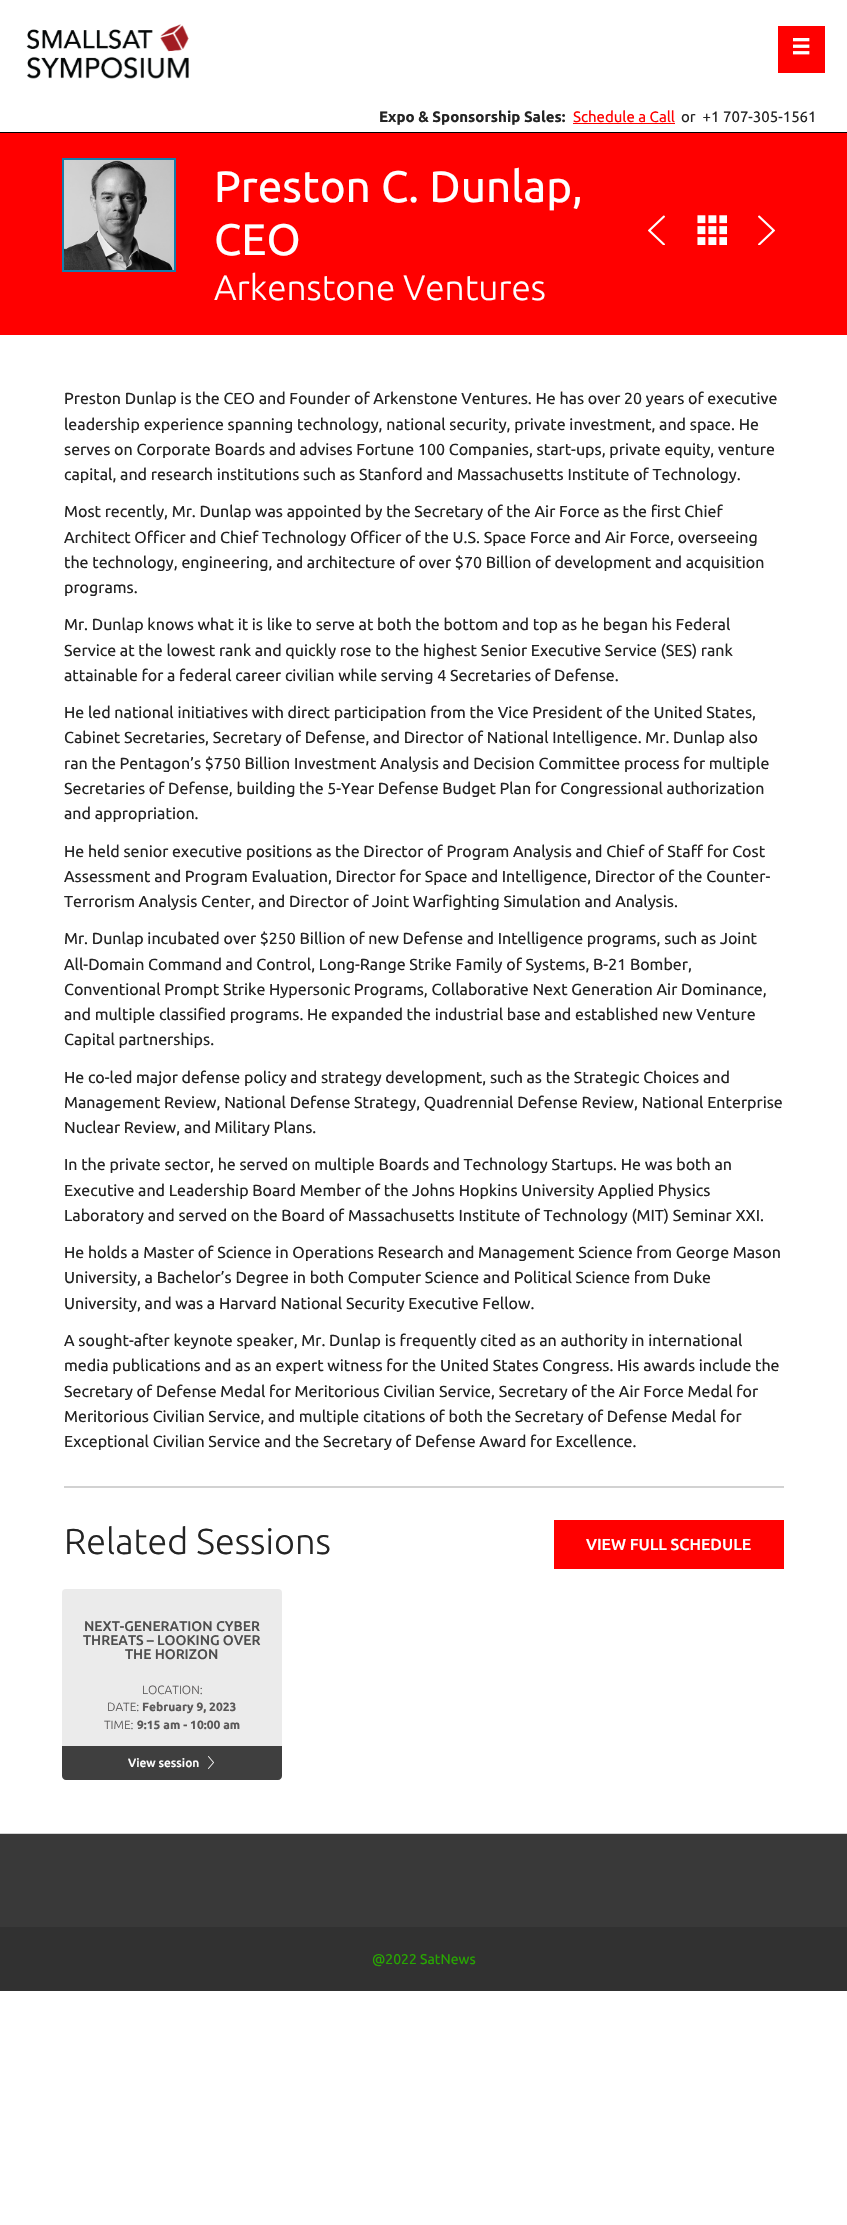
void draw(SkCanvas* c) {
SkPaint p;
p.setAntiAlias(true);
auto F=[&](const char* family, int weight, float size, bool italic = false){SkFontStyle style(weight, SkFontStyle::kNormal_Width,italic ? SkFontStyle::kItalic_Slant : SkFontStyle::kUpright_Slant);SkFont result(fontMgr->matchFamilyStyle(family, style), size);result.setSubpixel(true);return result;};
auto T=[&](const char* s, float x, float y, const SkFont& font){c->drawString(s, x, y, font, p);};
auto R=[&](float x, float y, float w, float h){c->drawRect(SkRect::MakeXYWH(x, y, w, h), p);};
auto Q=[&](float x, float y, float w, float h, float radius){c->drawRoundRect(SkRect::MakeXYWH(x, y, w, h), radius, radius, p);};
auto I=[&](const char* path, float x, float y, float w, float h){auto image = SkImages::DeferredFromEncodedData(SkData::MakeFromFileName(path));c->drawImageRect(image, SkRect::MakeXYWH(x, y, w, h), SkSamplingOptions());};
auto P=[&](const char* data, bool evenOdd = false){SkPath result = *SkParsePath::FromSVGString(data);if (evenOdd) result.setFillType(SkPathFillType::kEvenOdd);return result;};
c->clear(0xffffffff);
I("1.png",26,24,163,55);
p.setColor(0xffff0000);
R(778,26,47,47);
I("2.png",793,38,17,17);
p.setColor(0xff000000);
R(0,132,847,1);
auto f1 = F("Ubuntu",700,15);
p.setColor(0xff242424);
T("Expo & Sponsorship Sales:",379,122,f1);
auto f2 = F("Ubuntu",400,15);
p.setColor(0xffff0000);
T("Schedule a Call",573,122,f2);
R(573,123,102,1);
p.setColor(0xff242424);
T("or  +1 707-305-1561",681,122,f2);
p.setColor(0xffff0000);
R(0,133,847,202);
p.setStroke(true);
p.setStrokeWidth(2);
p.setColor(0xff157eab);
c->drawRect(SkRect::MakeXYWH(63,159,112,112),p);
I("3.png",64,160,110,110);
auto f3 = F("Ubuntu",400,44);
p.setStroke(false);
p.setColor(0xffffffff);
T("Preston C. Dunlap,",214,202,f3);
T("CEO",214,255,f3);
auto f4 = F("Ubuntu",300,35.25);
T("Arkenstone Ventures",214,300,f4);
I("4.png",648,215,17,30);
I("5.png",697,215,30,30);
I("6.png",758,215,17,30);
auto f5 = F("Ubuntu",400,16);
p.setColor(0xff242424);
T("Preston Dunlap is the CEO and Founder of Arkenstone Ventures. He has over 20 years of executive",64,404,f5);
T("leadership experience spanning technology, national security, private investment, and space. He",64,430,f5);
T("serves on Corporate Boards and advises Fortune 100 Companies, start-ups, private equity, venture",64,455,f5);
T("capital, and research institutions such as Stanford and Massachusetts Institute of Technology.",64,480,f5);
T("Most recently, Mr. Dunlap was appointed by the Secretary of the Air Force as the first Chief",64,517,f5);
T("Architect Officer and Chief Technology Officer of the U.S. Space Force and Air Force, overseeing",64,543,f5);
T("the technology, engineering, and architecture of over $70 Billion of development and acquisition",64,568,f5);
T("programs.",64,593,f5);
T("Mr. Dunlap knows what it is like to serve at both the bottom and top as he began his Federal",64,630,f5);
T("Service at the lowest rank and quickly rose to the highest Senior Executive Service (SES) rank",64,656,f5);
T("attainable for a federal career civilian while serving 4 Secretaries of Defense.",64,681,f5);
T("He led national initiatives with direct participation from the Vice President of the United States,",64,718,f5);
T("Cabinet Secretaries, Secretary of Defense, and Director of National Intelligence. Mr. Dunlap also",64,743,f5);
T("ran the Pentagon’s $750 Billion Investment Analysis and Decision Committee process for multiple",64,769,f5);
T("Secretaries of Defense, building the 5-Year Defense Budget Plan for Congressional authorization",64,794,f5);
T("and appropriation.",64,819,f5);
T("He held senior executive positions as the Director of Program Analysis and Chief of Staff for Cost",64,857,f5);
T("Assessment and Program Evaluation, Director for Space and Intelligence, Director of the Counter-",64,882,f5);
T("Terrorism Analysis Center, and Director of Joint Warfighting Simulation and Analysis.",64,907,f5);
T("Mr. Dunlap incubated over $250 Billion of new Defense and Intelligence programs, such as Joint",64,944,f5);
T("All-Domain Command and Control, Long-Range Strike Family of Systems, B-21 Bomber,",64,970,f5);
T("Conventional Prompt Strike Hypersonic Programs, Collaborative Next Generation Air Dominance,",64,995,f5);
T("and multiple classified programs. He expanded the industrial base and established new Venture",64,1020,f5);
T("Capital partnerships.",64,1045,f5);
T("He co-led major defense policy and strategy development, such as the Strategic Choices and",64,1083,f5);
T("Management Review, National Defense Strategy, Quadrennial Defense Review, National Enterprise",64,1108,f5);
T("Nuclear Review, and Military Plans.",64,1133,f5);
T("In the private sector, he served on multiple Boards and Technology Startups. He was both an",64,1170,f5);
T("Executive and Leadership Board Member of the Johns Hopkins University Applied Physics",64,1196,f5);
T("Laboratory and served on the Board of Massachusetts Institute of Technology (MIT) Seminar XXI.",64,1221,f5);
T("He holds a Master of Science in Operations Research and Management Science from George Mason",64,1258,f5);
T("University, a Bachelor’s Degree in both Computer Science and Political Science from Duke",64,1283,f5);
T("University, and was a Harvard National Security Executive Fellow.",64,1309,f5);
T("A sought-after keynote speaker, Mr. Dunlap is frequently cited as an authority in international",64,1346,f5);
T("media publications and as an expert witness for the United States Congress. His awards include the",64,1371,f5);
T("Secretary of Defense Medal for Meritorious Civilian Service, Secretary of the Air Force Medal for",64,1397,f5);
T("Meritorious Civilian Service, and multiple citations of both the Secretary of Defense Medal for",64,1422,f5);
T("Exceptional Civilian Service and the Secretary of Defense Award for Excellence.",64,1447,f5);
p.setColor(0xffd2d2d2);
R(64,1486,720,2);
auto f6 = F("Ubuntu",300,36);
p.setColor(0xff242424);
T("Related Sessions",64,1554,f6);
p.setColor(0xffff0000);
R(554,1520,230,49);
auto f7 = F("Ubuntu",500,16);
p.setColor(0xffffffff);
T("VIEW FULL SCHEDULE",586,1550,f7);
p.setColor(0xffebebeb);
Q(62,1589,220,191,4);
auto f8 = F("Ubuntu",500,14);
p.setColor(0xff4d4d4d);
T("NEXT-GENERATION CYBER",84,1631,f8);
T("THREATS – LOOKING OVER",83,1645,f8);
T("THE HORIZON",125,1659,f8);
auto f9 = F("Ubuntu",300,12);
p.setColor(0xff5b5959);
T("LOCATION:",142,1694,f9);
T("DATE:",107,1711,f9);
auto f10 = F("Ubuntu",700,12);
T("February 9, 2023",142,1711,f10);
T("TIME:",104,1729,f9);
T("9:15 am - 10:00 am",137,1729,f10);
p.setColor(0xff3f3f3f);
c->drawPath(P("M62 1746h220v30c0 2-2 4-4 4h-212c-2 0-4-2-4-4z"),p);
auto f11 = F("Ubuntu",500,12);
p.setColor(0xffffffff);
T("View session",128,1767,f11);
I("7.png",208,1756,6,13);
p.setColor(0xff393939);
R(0,1834,847,93);
p.setColor(0xffd3d3d3);
R(0,1833,847,1);
p.setColor(0xff313131);
R(0,1927,847,64);
auto f12 = F("Ubuntu",400,14);
p.setColor(0xff27a700);
T("@2022 SatNews",372,1964,f12);
}
